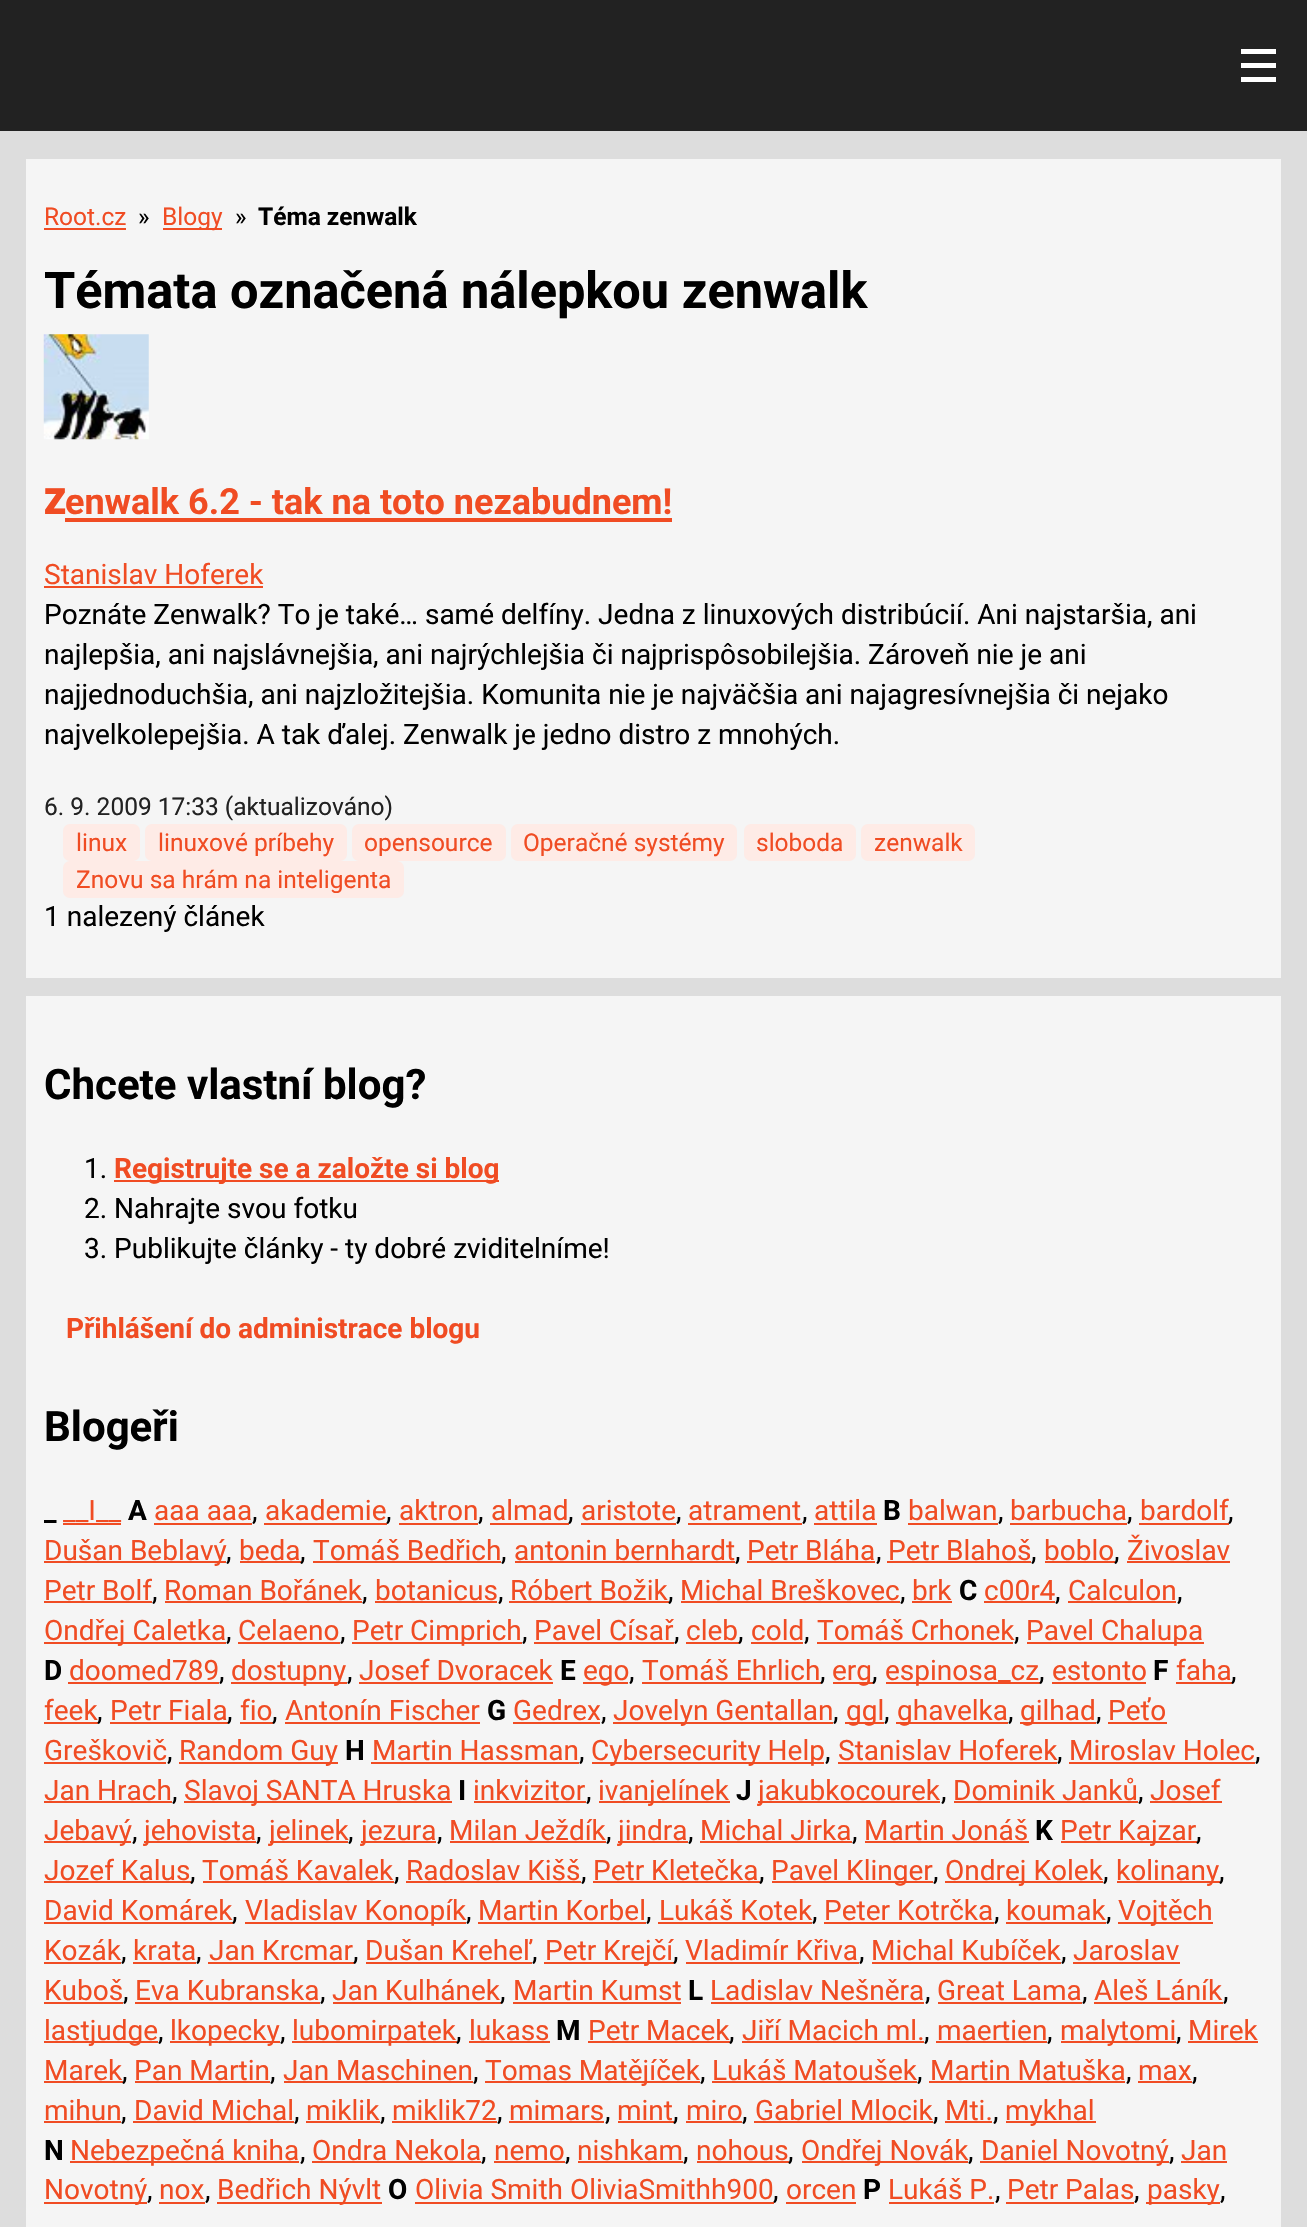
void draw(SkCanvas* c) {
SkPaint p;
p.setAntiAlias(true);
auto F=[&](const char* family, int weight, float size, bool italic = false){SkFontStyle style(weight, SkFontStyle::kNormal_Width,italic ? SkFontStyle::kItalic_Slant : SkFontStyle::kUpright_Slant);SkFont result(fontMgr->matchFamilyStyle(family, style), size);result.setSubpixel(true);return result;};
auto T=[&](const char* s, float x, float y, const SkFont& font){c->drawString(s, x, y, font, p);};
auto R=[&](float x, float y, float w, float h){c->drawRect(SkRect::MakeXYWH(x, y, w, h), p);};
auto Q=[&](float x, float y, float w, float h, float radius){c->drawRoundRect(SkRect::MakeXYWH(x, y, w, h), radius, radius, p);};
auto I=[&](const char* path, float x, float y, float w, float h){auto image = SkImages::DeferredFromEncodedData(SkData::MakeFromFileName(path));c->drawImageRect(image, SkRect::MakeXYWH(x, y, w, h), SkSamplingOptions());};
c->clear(0xffdddddd);
p.setColor(0xff222222);
R(0,0,1307,131);
p.setColor(0xffffffff);
R(1241,63,35,5);
R(1241,49,35,5);
R(1241,77,35,5);
p.setColor(0xfff5f5f5);
R(26,159,1255,819);
auto f1 = F("Roboto",400,24.5);
p.setColor(0xfff04c23);
T("Root.cz",44,225,f1);
R(44,228,82,2);
p.setColor(0xff000000);
T("»",138,225,f1);
p.setColor(0xfff04c23);
R(163,228,59,2);
T("Blogy",162,225,f1);
p.setColor(0xff000000);
T("»",235,225,f1);
auto f2 = F("Roboto",700,24.5);
T("Téma zenwalk",258,225,f2);
auto f3 = F("Roboto",700,50.5);
T("Témata označená nálepkou zenwalk",44,308,f3);
I("1.png",43,334,106,106);
auto f4 = F("Noto Sans",900,36);
p.setColor(0xfff04c23);
T("Z",44,514,f4);
auto f5 = F("Roboto",700,36);
T("enwalk 6.2 - tak na toto nezabudnem!",65,514,f5);
R(65,518,607,4);
auto f6 = F("Roboto",400,28);
T("Stanislav Hoferek",44,584,f6);
R(44,586,219,2);
p.setColor(0xff000000);
T("Poznáte Zenwalk? To je také… samé delfíny. Jedna z linuxových distribúcií. Ani najstaršia, ani",44,624,f6);
T("najlepšia, ani najslávnejšia, ani najrýchlejšia či najprispôsobilejšia. Zároveň nie je ani",44,664,f6);
T("najjednoduchšia, ani najzložitejšia. Komunita nie je najväčšia ani najagresívnejšia či nejako",44,704,f6);
T("najvelkolepejšia. A tak ďalej. Zenwalk je jedno distro z mnohých.",44,744,f6);
p.setColor(0xff222222);
T("6. 9. 2009 17:33 (aktualizováno)",44,815,f1);
p.setColor(0xfffeebe6);
Q(63,824,77,37,7);
p.setColor(0xfff04c23);
T("linux",76,851,f1);
p.setColor(0xfffeebe6);
Q(145,824,202,37,7);
p.setColor(0xfff04c23);
T("linuxové príbehy",158,851,f1);
p.setColor(0xfffeebe6);
Q(352,824,154,37,7);
p.setColor(0xfff04c23);
T("opensource",364,851,f1);
p.setColor(0xfffeebe6);
Q(511,824,226,37,7);
p.setColor(0xfff04c23);
T("Operačné systémy",523,851,f1);
p.setColor(0xfffeebe6);
Q(744,824,112,37,7);
p.setColor(0xfff04c23);
T("sloboda",756,851,f1);
p.setColor(0xfffeebe6);
Q(861,824,114,37,7);
p.setColor(0xfff04c23);
T("zenwalk",874,851,f1);
p.setColor(0xfffeebe6);
Q(63,861,341,37,7);
p.setColor(0xfff04c23);
T("Znovu sa hrám na inteligenta",76,888,f1);
p.setColor(0xff000000);
T("1 nalezený článek",44,926,f6);
p.setColor(0xfff5f5f5);
R(26,996,1255,1231);
auto f7 = F("Roboto",700,42);
p.setColor(0xff000000);
T("Chcete vlastní blog?",44,1099,f7);
T("1.",84,1178,f6);
p.setColor(0xfff04c23);
R(114,1180,385,2);
auto f8 = F("Roboto",700,28);
T("Registrujte se a založte si blog",114,1178,f8);
p.setColor(0xff000000);
T("2. Nahrajte svou fotku",84,1218,f6);
T("3. Publikujte články - ty dobré zviditelníme!",84,1258,f6);
p.setColor(0xfff04c23);
T("Přihlášení do administrace blogu",66,1338,f8);
p.setColor(0xff000000);
T("Blogeři",44,1441,f7);
T("_",44,1520,f8);
p.setColor(0xfff04c23);
R(63,1523,58,2);
T("__I__",63,1520,f6);
p.setColor(0xff000000);
T("A",128,1520,f8);
p.setColor(0xfff04c23);
T("aaa aaa",154,1520,f6);
p.setColor(0xff000000);
T(",",252,1520,f6);
p.setColor(0xfff04c23);
R(154,1523,98,2);
T("akademie",265,1520,f6);
R(264,1523,123,2);
p.setColor(0xff000000);
T(",",386,1520,f6);
p.setColor(0xfff04c23);
T("aktron",399,1520,f6);
p.setColor(0xff000000);
T(",",478,1520,f6);
p.setColor(0xfff04c23);
R(399,1523,79,2);
T("almad",491,1520,f6);
R(490,1523,79,2);
p.setColor(0xff000000);
T(",",568,1520,f6);
p.setColor(0xfff04c23);
T("aristote",581,1520,f6);
p.setColor(0xff000000);
T(",",676,1520,f6);
p.setColor(0xfff04c23);
R(581,1523,95,2);
T("atrament",688,1520,f6);
R(688,1523,114,2);
p.setColor(0xff000000);
T(",",802,1520,f6);
p.setColor(0xfff04c23);
R(814,1523,63,2);
T("attila",814,1520,f6);
p.setColor(0xff000000);
T("B",883,1520,f8);
p.setColor(0xfff04c23);
T("balwan",908,1520,f6);
p.setColor(0xff000000);
T(",",998,1520,f6);
p.setColor(0xfff04c23);
R(908,1523,90,2);
T("barbucha",1010,1520,f6);
p.setColor(0xff000000);
T(",",1127,1520,f6);
p.setColor(0xfff04c23);
R(1010,1523,117,2);
T("bardolf",1140,1520,f6);
R(1139,1523,90,2);
p.setColor(0xff000000);
T(",",1228,1520,f6);
p.setColor(0xfff04c23);
R(44,1561,182,2);
T("Dušan Beblavý",44,1560,f6);
p.setColor(0xff000000);
T(",",226,1560,f6);
p.setColor(0xfff04c23);
T("beda",239,1560,f6);
R(240,1561,61,2);
p.setColor(0xff000000);
T(",",300,1560,f6);
p.setColor(0xfff04c23);
T("Tomáš Bedřich",313,1560,f6);
p.setColor(0xff000000);
T(",",501,1560,f6);
p.setColor(0xfff04c23);
R(313,1561,188,2);
T("antonin bernhardt",514,1560,f6);
p.setColor(0xff000000);
T(",",735,1560,f6);
p.setColor(0xfff04c23);
R(515,1561,220,2);
T("Petr Bláha",747,1560,f6);
p.setColor(0xff000000);
T(",",876,1560,f6);
p.setColor(0xfff04c23);
R(747,1561,128,2);
T("Petr Blahoš",888,1560,f6);
p.setColor(0xff000000);
T(",",1031,1560,f6);
p.setColor(0xfff04c23);
R(887,1561,144,2);
T("boblo",1044,1560,f6);
R(1045,1561,70,2);
p.setColor(0xff000000);
T(",",1114,1560,f6);
p.setColor(0xfff04c23);
R(1127,1561,103,2);
T("Živoslav",1127,1560,f6);
T("Petr Bolf",44,1600,f6);
p.setColor(0xff000000);
T(",",152,1600,f6);
p.setColor(0xfff04c23);
R(44,1601,108,2);
T("Roman Bořánek",164,1600,f6);
p.setColor(0xff000000);
T(",",362,1600,f6);
p.setColor(0xfff04c23);
R(165,1601,197,2);
T("botanicus",375,1600,f6);
p.setColor(0xff000000);
T(",",498,1600,f6);
p.setColor(0xfff04c23);
R(375,1601,122,2);
T("Róbert Božik",510,1600,f6);
R(509,1601,160,2);
p.setColor(0xff000000);
T(",",668,1600,f6);
p.setColor(0xfff04c23);
T("Michal Breškovec",680,1600,f6);
p.setColor(0xff000000);
T(",",900,1600,f6);
p.setColor(0xfff04c23);
R(681,1601,219,2);
R(912,1601,40,2);
T("brk",912,1600,f6);
p.setColor(0xff000000);
T("C",959,1600,f8);
p.setColor(0xfff04c23);
T("c00r4",984,1600,f6);
p.setColor(0xff000000);
T(",",1055,1600,f6);
p.setColor(0xfff04c23);
R(984,1601,71,2);
T("Calculon",1068,1600,f6);
p.setColor(0xff000000);
T(",",1177,1600,f6);
p.setColor(0xfff04c23);
R(1068,1601,108,2);
R(44,1642,182,2);
T("Ondřej Caletka",44,1640,f6);
p.setColor(0xff000000);
T(",",226,1640,f6);
p.setColor(0xfff04c23);
T("Celaeno",238,1640,f6);
p.setColor(0xff000000);
T(",",340,1640,f6);
p.setColor(0xfff04c23);
R(238,1642,102,2);
R(352,1642,170,2);
T("Petr Cimprich",352,1640,f6);
p.setColor(0xff000000);
T(",",522,1640,f6);
p.setColor(0xfff04c23);
T("Pavel Císař",534,1640,f6);
p.setColor(0xff000000);
T(",",674,1640,f6);
p.setColor(0xfff04c23);
R(534,1642,140,2);
T("cleb",686,1640,f6);
R(686,1642,53,2);
p.setColor(0xff000000);
T(",",738,1640,f6);
p.setColor(0xfff04c23);
T("cold",751,1640,f6);
p.setColor(0xff000000);
T(",",804,1640,f6);
p.setColor(0xfff04c23);
R(751,1642,52,2);
T("Tomáš Crhonek",817,1640,f6);
p.setColor(0xff000000);
T(",",1014,1640,f6);
p.setColor(0xfff04c23);
R(817,1642,196,2);
R(1027,1642,177,2);
T("Pavel Chalupa",1026,1640,f6);
p.setColor(0xff000000);
T("D",44,1680,f8);
p.setColor(0xfff04c23);
T("doomed789",69,1680,f6);
p.setColor(0xff000000);
T(",",219,1680,f6);
p.setColor(0xfff04c23);
R(68,1682,151,2);
R(231,1682,116,2);
T("dostupny",231,1680,f6);
p.setColor(0xff000000);
T(",",347,1680,f6);
p.setColor(0xfff04c23);
R(359,1682,194,2);
T("Josef Dvoracek",359,1680,f6);
p.setColor(0xff000000);
T("E",560,1680,f8);
p.setColor(0xfff04c23);
R(583,1682,45,2);
T("ego",583,1680,f6);
p.setColor(0xff000000);
T(",",629,1680,f6);
p.setColor(0xfff04c23);
T("Tomáš Ehrlich",642,1680,f6);
R(642,1682,179,2);
p.setColor(0xff000000);
T(",",820,1680,f6);
p.setColor(0xfff04c23);
R(833,1682,40,2);
T("erg",832,1680,f6);
p.setColor(0xff000000);
T(",",872,1680,f6);
p.setColor(0xfff04c23);
R(886,1682,154,2);
T("espinosa_cz",885,1680,f6);
p.setColor(0xff000000);
T(",",1039,1680,f6);
p.setColor(0xfff04c23);
R(1052,1682,94,2);
T("estonto",1052,1680,f6);
p.setColor(0xff000000);
T("F",1153,1680,f8);
p.setColor(0xfff04c23);
T("faha",1176,1680,f6);
R(1176,1682,56,2);
p.setColor(0xff000000);
T(",",1231,1680,f6);
p.setColor(0xfff04c23);
T("feek",44,1720,f6);
R(44,1722,54,2);
p.setColor(0xff000000);
T(",",97,1720,f6);
p.setColor(0xfff04c23);
T("Petr Fiala",110,1720,f6);
R(110,1722,118,2);
p.setColor(0xff000000);
T(",",227,1720,f6);
p.setColor(0xfff04c23);
T("fio",240,1720,f6);
R(240,1722,33,2);
p.setColor(0xff000000);
T(",",272,1720,f6);
p.setColor(0xfff04c23);
R(285,1722,195,2);
T("Antonín Fischer",285,1720,f6);
p.setColor(0xff000000);
T("G",487,1720,f8);
p.setColor(0xfff04c23);
T("Gedrex",513,1720,f6);
p.setColor(0xff000000);
T(",",601,1720,f6);
p.setColor(0xfff04c23);
R(513,1722,87,2);
R(613,1722,220,2);
T("Jovelyn Gentallan",613,1720,f6);
p.setColor(0xff000000);
T(",",833,1720,f6);
p.setColor(0xfff04c23);
R(845,1722,39,2);
T("ggl",846,1720,f6);
p.setColor(0xff000000);
T(",",884,1720,f6);
p.setColor(0xfff04c23);
R(896,1722,112,2);
T("ghavelka",897,1720,f6);
p.setColor(0xff000000);
T(",",1008,1720,f6);
p.setColor(0xfff04c23);
R(1020,1722,76,2);
T("gilhad",1020,1720,f6);
p.setColor(0xff000000);
T(",",1096,1720,f6);
p.setColor(0xfff04c23);
R(1108,1722,59,2);
T("Peťo",1108,1720,f6);
T("Greškovič",44,1760,f6);
p.setColor(0xff000000);
T(",",167,1760,f6);
p.setColor(0xfff04c23);
R(44,1762,122,2);
R(179,1762,159,2);
T("Random Guy",179,1760,f6);
p.setColor(0xff000000);
T("H",345,1760,f8);
p.setColor(0xfff04c23);
T("Martin Hassman",372,1760,f6);
p.setColor(0xff000000);
T(",",579,1760,f6);
p.setColor(0xfff04c23);
R(371,1762,208,2);
R(592,1762,232,2);
T("Cybersecurity Help",591,1760,f6);
p.setColor(0xff000000);
T(",",825,1760,f6);
p.setColor(0xfff04c23);
T("Stanislav Hoferek",838,1760,f6);
p.setColor(0xff000000);
T(",",1057,1760,f6);
p.setColor(0xfff04c23);
R(838,1762,219,2);
T("Miroslav Holec",1069,1760,f6);
p.setColor(0xff000000);
T(",",1255,1760,f6);
p.setColor(0xfff04c23);
R(1069,1762,186,2);
T("Jan Hrach",44,1800,f6);
R(44,1801,128,2);
p.setColor(0xff000000);
T(",",172,1800,f6);
p.setColor(0xfff04c23);
R(184,1801,268,2);
T("Slavoj SANTA Hruska",184,1800,f6);
p.setColor(0xff000000);
T("I",458,1800,f8);
p.setColor(0xfff04c23);
T("inkvizitor",473,1800,f6);
p.setColor(0xff000000);
T(",",586,1800,f6);
p.setColor(0xfff04c23);
R(474,1801,112,2);
R(599,1801,131,2);
T("ivanjelínek",598,1800,f6);
p.setColor(0xff000000);
T("J",736,1800,f8);
p.setColor(0xfff04c23);
R(758,1801,182,2);
T("jakubkocourek",758,1800,f6);
p.setColor(0xff000000);
T(",",941,1800,f6);
p.setColor(0xfff04c23);
T("Dominik Janků",953,1800,f6);
p.setColor(0xff000000);
T(",",1138,1800,f6);
p.setColor(0xfff04c23);
R(954,1801,184,2);
R(1150,1801,72,2);
T("Josef",1150,1800,f6);
R(44,1841,87,2);
T("Jebavý",44,1840,f6);
p.setColor(0xff000000);
T(",",132,1840,f6);
p.setColor(0xfff04c23);
R(144,1841,112,2);
T("jehovista",144,1840,f6);
p.setColor(0xff000000);
T(",",256,1840,f6);
p.setColor(0xfff04c23);
R(270,1841,78,2);
T("jelinek",269,1840,f6);
p.setColor(0xff000000);
T(",",348,1840,f6);
p.setColor(0xfff04c23);
R(361,1841,75,2);
T("jezura",361,1840,f6);
p.setColor(0xff000000);
T(",",437,1840,f6);
p.setColor(0xfff04c23);
T("Milan Ježdík",449,1840,f6);
p.setColor(0xff000000);
T(",",606,1840,f6);
p.setColor(0xfff04c23);
R(450,1841,156,2);
R(618,1841,70,2);
T("jindra",618,1840,f6);
p.setColor(0xff000000);
T(",",688,1840,f6);
p.setColor(0xfff04c23);
T("Michal Jirka",700,1840,f6);
p.setColor(0xff000000);
T(",",852,1840,f6);
p.setColor(0xfff04c23);
R(700,1841,152,2);
R(865,1841,164,2);
T("Martin Jonáš",864,1840,f6);
p.setColor(0xff000000);
T("K",1035,1840,f8);
p.setColor(0xfff04c23);
R(1061,1841,136,2);
T("Petr Kajzar",1060,1840,f6);
p.setColor(0xff000000);
T(",",1196,1840,f6);
p.setColor(0xfff04c23);
T("Jozef Kalus",44,1880,f6);
R(44,1881,147,2);
p.setColor(0xff000000);
T(",",190,1880,f6);
p.setColor(0xfff04c23);
T("Tomáš Kavalek",202,1880,f6);
p.setColor(0xff000000);
T(",",394,1880,f6);
p.setColor(0xfff04c23);
R(203,1881,191,2);
T("Radoslav Kišš",406,1880,f6);
p.setColor(0xff000000);
T(",",581,1880,f6);
p.setColor(0xfff04c23);
R(406,1881,175,2);
T("Petr Kletečka",593,1880,f6);
R(593,1881,167,2);
p.setColor(0xff000000);
T(",",759,1880,f6);
p.setColor(0xfff04c23);
R(772,1881,161,2);
T("Pavel Klinger",771,1880,f6);
p.setColor(0xff000000);
T(",",933,1880,f6);
p.setColor(0xfff04c23);
R(945,1881,158,2);
T("Ondrej Kolek",945,1880,f6);
p.setColor(0xff000000);
T(",",1103,1880,f6);
p.setColor(0xfff04c23);
R(1117,1881,103,2);
T("kolinany",1116,1880,f6);
p.setColor(0xff000000);
T(",",1219,1880,f6);
p.setColor(0xfff04c23);
T("David Komárek",44,1920,f6);
R(44,1922,189,2);
p.setColor(0xff000000);
T(",",232,1920,f6);
p.setColor(0xfff04c23);
R(245,1922,221,2);
T("Vladislav Konopík",245,1920,f6);
p.setColor(0xff000000);
T(",",466,1920,f6);
p.setColor(0xfff04c23);
T("Martin Korbel",478,1920,f6);
p.setColor(0xff000000);
T(",",646,1920,f6);
p.setColor(0xfff04c23);
R(478,1922,168,2);
T("Lukáš Kotek",659,1920,f6);
p.setColor(0xff000000);
T(",",812,1920,f6);
p.setColor(0xfff04c23);
R(658,1922,154,2);
T("Peter Kotrčka",824,1920,f6);
p.setColor(0xff000000);
T(",",994,1920,f6);
p.setColor(0xfff04c23);
R(824,1922,170,2);
T("koumak",1006,1920,f6);
p.setColor(0xff000000);
T(",",1106,1920,f6);
p.setColor(0xfff04c23);
R(1006,1922,100,2);
R(1118,1922,95,2);
T("Vojtěch",1118,1920,f6);
T("Kozák",44,1960,f6);
R(44,1962,77,2);
p.setColor(0xff000000);
T(",",121,1960,f6);
p.setColor(0xfff04c23);
T("krata",133,1960,f6);
p.setColor(0xff000000);
T(",",196,1960,f6);
p.setColor(0xfff04c23);
R(133,1962,63,2);
T("Jan Krcmar",209,1960,f6);
R(208,1962,146,2);
p.setColor(0xff000000);
T(",",353,1960,f6);
p.setColor(0xfff04c23);
T("Dušan Kreheľ",365,1960,f6);
p.setColor(0xff000000);
T(",",532,1960,f6);
p.setColor(0xfff04c23);
R(366,1962,166,2);
R(544,1962,130,2);
T("Petr Krejčí",545,1960,f6);
p.setColor(0xff000000);
T(",",673,1960,f6);
p.setColor(0xfff04c23);
T("Vladimír Křiva",685,1960,f6);
R(686,1962,173,2);
p.setColor(0xff000000);
T(",",859,1960,f6);
p.setColor(0xfff04c23);
T("Michal Kubíček",871,1960,f6);
p.setColor(0xff000000);
T(",",1061,1960,f6);
p.setColor(0xfff04c23);
R(872,1962,189,2);
R(1073,1962,107,2);
T("Jaroslav",1073,1960,f6);
T("Kuboš",44,2000,f6);
p.setColor(0xff000000);
T(",",123,2000,f6);
p.setColor(0xfff04c23);
R(44,2002,79,2);
T("Eva Kubranska",135,2000,f6);
p.setColor(0xff000000);
T(",",320,2000,f6);
p.setColor(0xfff04c23);
R(135,2002,185,2);
T("Jan Kulhánek",332,2000,f6);
R(333,2002,168,2);
p.setColor(0xff000000);
T(",",500,2000,f6);
p.setColor(0xfff04c23);
R(513,2002,168,2);
T("Martin Kumst",513,2000,f6);
p.setColor(0xff000000);
T("L",688,2000,f8);
p.setColor(0xfff04c23);
T("Ladislav Nešněra",710,2000,f6);
p.setColor(0xff000000);
T(",",925,2000,f6);
p.setColor(0xfff04c23);
R(711,2002,213,2);
T("Great Lama",937,2000,f6);
p.setColor(0xff000000);
T(",",1082,2000,f6);
p.setColor(0xfff04c23);
R(938,2002,144,2);
T("Aleš Láník",1094,2000,f6);
p.setColor(0xff000000);
T(",",1223,2000,f6);
p.setColor(0xfff04c23);
R(1094,2002,129,2);
R(44,2041,114,2);
T("lastjudge",44,2040,f6);
p.setColor(0xff000000);
T(",",158,2040,f6);
p.setColor(0xfff04c23);
R(170,2041,110,2);
T("lkopecky",170,2040,f6);
p.setColor(0xff000000);
T(",",280,2040,f6);
p.setColor(0xfff04c23);
R(292,2041,165,2);
T("lubomirpatek",292,2040,f6);
p.setColor(0xff000000);
T(",",456,2040,f6);
p.setColor(0xfff04c23);
R(469,2041,81,2);
T("lukass",469,2040,f6);
p.setColor(0xff000000);
T("M",556,2040,f8);
p.setColor(0xfff04c23);
T("Petr Macek",588,2040,f6);
R(588,2041,142,2);
p.setColor(0xff000000);
T(",",729,2040,f6);
p.setColor(0xfff04c23);
T("Jiří Macich ml.",742,2040,f6);
p.setColor(0xff000000);
T(",",924,2040,f6);
p.setColor(0xfff04c23);
R(742,2041,182,2);
T("maertien",937,2040,f6);
p.setColor(0xff000000);
T(",",1047,2040,f6);
p.setColor(0xfff04c23);
R(936,2041,111,2);
R(1061,2041,115,2);
T("malytomi",1060,2040,f6);
p.setColor(0xff000000);
T(",",1176,2040,f6);
p.setColor(0xfff04c23);
R(1188,2041,70,2);
T("Mirek",1188,2040,f6);
T("Marek",44,2080,f6);
R(44,2081,79,2);
p.setColor(0xff000000);
T(",",122,2080,f6);
p.setColor(0xfff04c23);
T("Pan Martin",134,2080,f6);
p.setColor(0xff000000);
T(",",270,2080,f6);
p.setColor(0xfff04c23);
R(135,2081,135,2);
T("Jan Maschinen",283,2080,f6);
R(284,2081,189,2);
p.setColor(0xff000000);
T(",",473,2080,f6);
p.setColor(0xfff04c23);
R(485,2081,215,2);
T("Tomas Matějíček",485,2080,f6);
p.setColor(0xff000000);
T(",",700,2080,f6);
p.setColor(0xfff04c23);
T("Lukáš Matoušek",712,2080,f6);
p.setColor(0xff000000);
T(",",917,2080,f6);
p.setColor(0xfff04c23);
R(712,2081,205,2);
T("Martin Matuška",930,2080,f6);
p.setColor(0xff000000);
T(",",1126,2080,f6);
p.setColor(0xfff04c23);
R(929,2081,196,2);
T("max",1138,2080,f6);
p.setColor(0xff000000);
T(",",1192,2080,f6);
p.setColor(0xfff04c23);
R(1138,2081,54,2);
T("mihun",44,2120,f6);
p.setColor(0xff000000);
T(",",121,2120,f6);
p.setColor(0xfff04c23);
R(44,2121,77,2);
T("David Michal",134,2120,f6);
p.setColor(0xff000000);
T(",",294,2120,f6);
p.setColor(0xfff04c23);
R(133,2121,161,2);
T("miklik",306,2120,f6);
p.setColor(0xff000000);
T(",",380,2120,f6);
p.setColor(0xfff04c23);
R(306,2121,74,2);
T("miklik72",392,2120,f6);
p.setColor(0xff000000);
T(",",497,2120,f6);
p.setColor(0xfff04c23);
R(392,2121,105,2);
T("mimars",509,2120,f6);
p.setColor(0xff000000);
T(",",605,2120,f6);
p.setColor(0xfff04c23);
R(509,2121,95,2);
T("mint",617,2120,f6);
R(618,2121,56,2);
p.setColor(0xff000000);
T(",",673,2120,f6);
p.setColor(0xfff04c23);
T("miro",686,2120,f6);
p.setColor(0xff000000);
T(",",742,2120,f6);
p.setColor(0xfff04c23);
R(686,2121,56,2);
T("Gabriel Mlocik",755,2120,f6);
p.setColor(0xff000000);
T(",",933,2120,f6);
p.setColor(0xfff04c23);
R(754,2121,179,2);
T("Mti.",945,2120,f6);
p.setColor(0xff000000);
T(",",993,2120,f6);
p.setColor(0xfff04c23);
R(945,2121,47,2);
R(1006,2121,90,2);
T("mykhal",1005,2120,f6);
p.setColor(0xff000000);
T("N",44,2160,f8);
p.setColor(0xfff04c23);
R(70,2161,229,2);
T("Nebezpečná kniha",70,2160,f6);
p.setColor(0xff000000);
T(",",300,2160,f6);
p.setColor(0xfff04c23);
T("Ondra Nekola",312,2160,f6);
p.setColor(0xff000000);
T(",",481,2160,f6);
p.setColor(0xfff04c23);
R(312,2161,169,2);
T("nemo",494,2160,f6);
p.setColor(0xff000000);
T(",",565,2160,f6);
p.setColor(0xfff04c23);
R(494,2161,71,2);
T("nishkam",577,2160,f6);
p.setColor(0xff000000);
T(",",683,2160,f6);
p.setColor(0xfff04c23);
R(578,2161,105,2);
T("nohous",696,2160,f6);
R(697,2161,92,2);
p.setColor(0xff000000);
T(",",788,2160,f6);
p.setColor(0xfff04c23);
R(802,2161,166,2);
T("Ondřej Novák",801,2160,f6);
p.setColor(0xff000000);
T(",",968,2160,f6);
p.setColor(0xfff04c23);
R(980,2161,189,2);
T("Daniel Novotný",981,2160,f6);
p.setColor(0xff000000);
T(",",1169,2160,f6);
p.setColor(0xfff04c23);
R(1181,2161,46,2);
T("Jan",1181,2160,f6);
R(44,2202,103,2);
T("Novotný",44,2199,f6);
p.setColor(0xff000000);
T(",",147,2199,f6);
p.setColor(0xfff04c23);
T("nox",159,2199,f6);
p.setColor(0xff000000);
T(",",205,2199,f6);
p.setColor(0xfff04c23);
R(159,2202,46,2);
R(217,2202,165,2);
T("Bedřich Nývlt",217,2199,f6);
p.setColor(0xff000000);
T("O",388,2199,f8);
p.setColor(0xfff04c23);
T("Olivia Smith OliviaSmithh900",415,2199,f6);
R(415,2202,359,2);
p.setColor(0xff000000);
T(",",773,2199,f6);
p.setColor(0xfff04c23);
R(786,2202,70,2);
T("orcen",786,2199,f6);
p.setColor(0xff000000);
T("P",863,2199,f8);
p.setColor(0xfff04c23);
T("Lukáš P.",888,2199,f6);
p.setColor(0xff000000);
T(",",995,2199,f6);
p.setColor(0xfff04c23);
R(889,2202,105,2);
T("Petr Palas",1007,2199,f6);
p.setColor(0xff000000);
T(",",1134,2199,f6);
p.setColor(0xfff04c23);
R(1006,2202,128,2);
R(1146,2202,74,2);
T("pasky",1147,2199,f6);
p.setColor(0xff000000);
T(",",1220,2199,f6);
}
